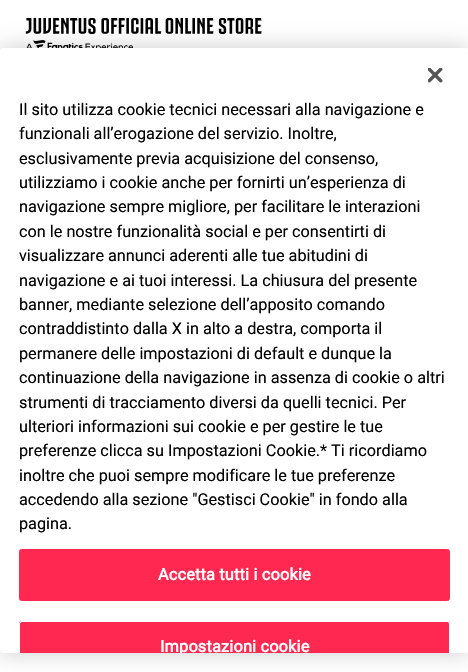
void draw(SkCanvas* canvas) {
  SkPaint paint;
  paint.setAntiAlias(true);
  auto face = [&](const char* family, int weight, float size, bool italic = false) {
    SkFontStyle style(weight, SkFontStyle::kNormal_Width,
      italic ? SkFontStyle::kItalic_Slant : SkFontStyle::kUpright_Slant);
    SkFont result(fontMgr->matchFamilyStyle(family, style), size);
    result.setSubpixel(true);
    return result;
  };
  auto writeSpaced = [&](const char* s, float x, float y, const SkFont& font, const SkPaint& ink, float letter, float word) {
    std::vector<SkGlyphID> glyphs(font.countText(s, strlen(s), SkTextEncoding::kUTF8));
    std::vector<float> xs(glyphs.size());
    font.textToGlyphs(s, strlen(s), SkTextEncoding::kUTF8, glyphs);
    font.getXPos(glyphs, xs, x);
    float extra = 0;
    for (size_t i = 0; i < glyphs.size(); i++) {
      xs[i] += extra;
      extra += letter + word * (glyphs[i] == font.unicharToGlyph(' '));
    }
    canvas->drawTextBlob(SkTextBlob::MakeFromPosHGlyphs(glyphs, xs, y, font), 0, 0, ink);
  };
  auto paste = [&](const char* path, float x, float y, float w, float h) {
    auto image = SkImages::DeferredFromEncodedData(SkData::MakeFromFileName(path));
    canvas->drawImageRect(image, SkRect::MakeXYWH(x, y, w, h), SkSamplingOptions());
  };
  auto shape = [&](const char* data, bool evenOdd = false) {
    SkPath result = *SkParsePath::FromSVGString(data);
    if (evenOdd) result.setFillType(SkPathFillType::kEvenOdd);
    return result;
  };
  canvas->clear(0xffffffff);
  paste("img/1.png", 25, 18, 237, 30);
  paint.setColor(0x33000000);
  paint.setMaskFilter(SkMaskFilter::MakeBlur(kNormal_SkBlurStyle, 11));
  canvas->drawRoundRect(SkRect::MakeXYWH(0, 48, 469, 605), 3, 3, paint);
  paint.setMaskFilter(nullptr);
  paint.setColor(0xffffffff);
  canvas->drawRoundRect(SkRect::MakeXYWH(0, 48, 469, 605), 3, 3, paint);
  paste("img/2.png", 428, 68, 15, 15);
  paint.setColor(0xffff2850);
  canvas->drawRoundRect(SkRect::MakeXYWH(19.5f, 549.5f, 430, 51), 2, 2, paint);
  paint.setStroke(true);
  paint.setStrokeWidth(1);
  canvas->drawRoundRect(SkRect::MakeXYWH(19.5f, 549.5f, 430, 51), 2, 2, paint);
  paint.setStroke(false);
  canvas->drawPath(shape("M21.5 621H447.5C449 621 450 622 450 623.5V653H19V623.5C19 622 20 621 21.5 621Z"), paint);
  paint.setColor(0xffffffff);
  canvas->drawPath(shape("M22 621C20 621 19 622 19 624V653H20V624C20 623 21 622 22 622H448C448 622 449 623 449 624V653H450V624C450 622 449 621 448 621Z"), paint);
  auto f0 = face("Roboto", 400, 16.25f);
  paint.setColor(0xff000000);
  {
    const struct { const char* s; float x, y; } items[] = {
      {"Il sito utilizza cookie tecnici necessari alla navigazione e", 19, 115},
      {"funzionali all’erogazione del servizio. Inoltre,", 19, 139},
      {"esclusivamente previa acquisizione del consenso,", 19, 164},
      {"utilizziamo i cookie anche per fornirti un’esperienza di", 19, 188},
      {"navigazione sempre migliore, per facilitare le interazioni", 19, 212},
      {"con le nostre funzionalità social e per consentirti di", 19, 237},
      {"visualizzare annunci aderenti alle tue abitudini di", 19, 261},
      {"navigazione e ai tuoi interessi. La chiusura del presente", 19, 286},
      {"banner, mediante selezione dell’apposito comando", 19, 310},
      {"contraddistinto dalla X in alto a destra, comporta il", 19, 334},
      {"permanere delle impostazioni di default e dunque la", 19, 359},
      {"continuazione della navigazione in assenza di cookie o altri", 19, 383},
      {"strumenti di tracciamento diversi da quelli tecnici. Per", 19, 408},
      {"ulteriori informazioni sui cookie e per gestire le tue", 19, 432},
      {"preferenze clicca su Impostazioni Cookie.* Ti ricordiamo", 19, 456},
      {"inoltre che puoi sempre modificare le tue preferenze", 19, 481},
      {"accedendo alla sezione \"Gestisci Cookie\" in fondo alla", 19, 505},
      {"pagina.", 19, 529},
    };
    for (auto [s, x, y] : items) {
      canvas->drawString(s, x, y, f0, paint);
    }
  }
  auto f1 = face("Roboto", 700, 16.25f);
  paint.setColor(0xffffffff);
  writeSpaced("Accetta tutti i cookie", 158, 580, f1, paint, 0.2f, 0);
  canvas->save();
  canvas->clipPath(shape("M3 48H466C467.5 48 469 49.5 469 51V650C469 651.5 467.5 653 466 653H3C1.5 653 0 651.5 0 650V51C0 49.5 1.5 48 3 48Z"), true);
  writeSpaced("Impostazioni cookie", 160, 652, f1, paint, 0.2f, 0);
  canvas->restore();
}
